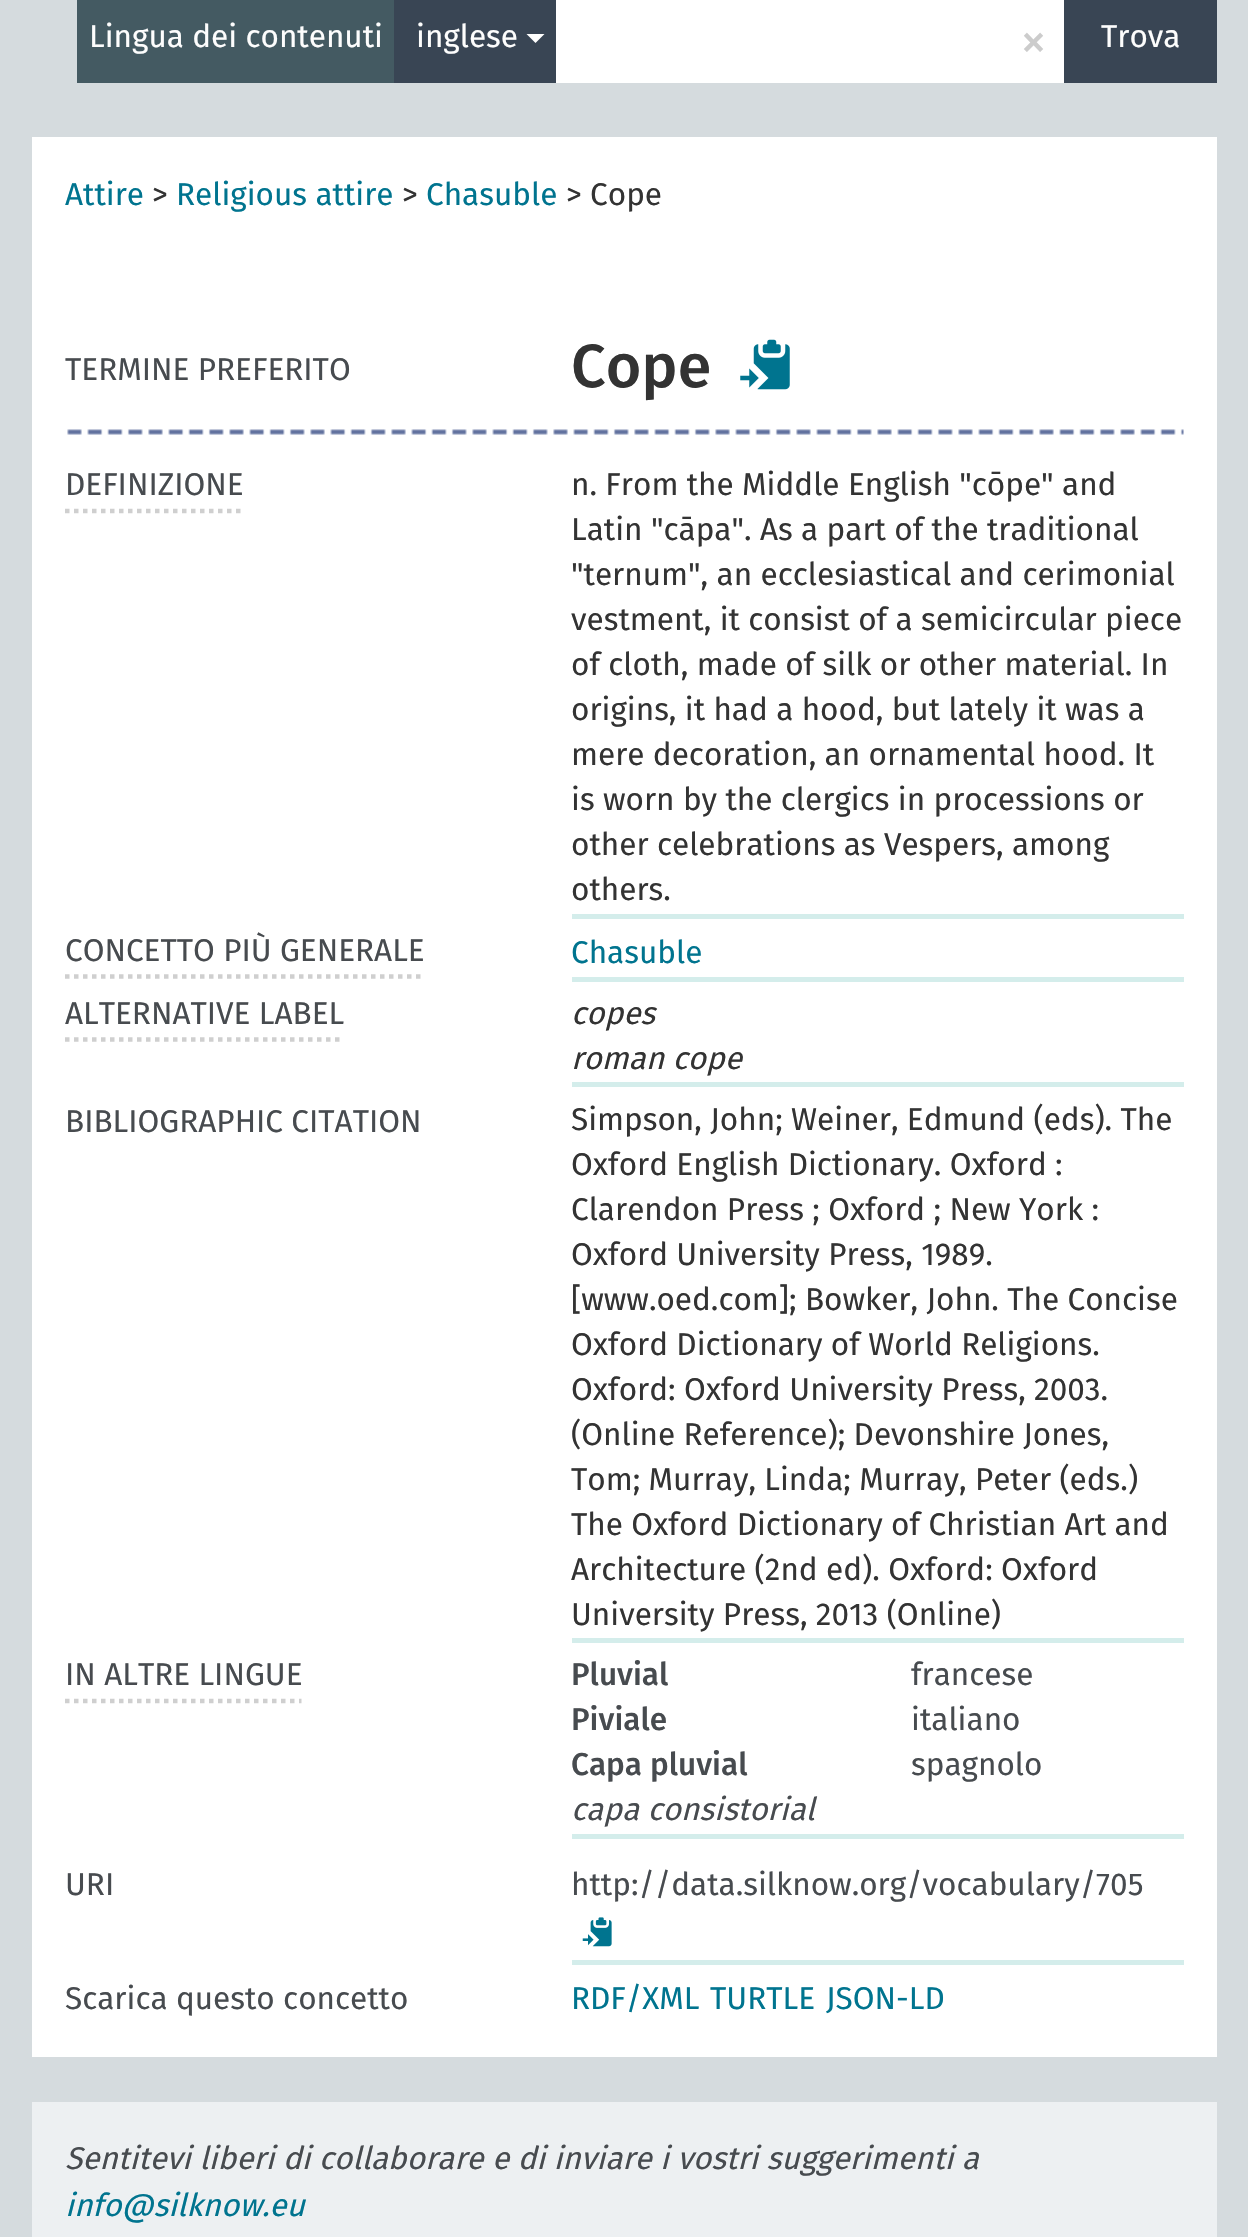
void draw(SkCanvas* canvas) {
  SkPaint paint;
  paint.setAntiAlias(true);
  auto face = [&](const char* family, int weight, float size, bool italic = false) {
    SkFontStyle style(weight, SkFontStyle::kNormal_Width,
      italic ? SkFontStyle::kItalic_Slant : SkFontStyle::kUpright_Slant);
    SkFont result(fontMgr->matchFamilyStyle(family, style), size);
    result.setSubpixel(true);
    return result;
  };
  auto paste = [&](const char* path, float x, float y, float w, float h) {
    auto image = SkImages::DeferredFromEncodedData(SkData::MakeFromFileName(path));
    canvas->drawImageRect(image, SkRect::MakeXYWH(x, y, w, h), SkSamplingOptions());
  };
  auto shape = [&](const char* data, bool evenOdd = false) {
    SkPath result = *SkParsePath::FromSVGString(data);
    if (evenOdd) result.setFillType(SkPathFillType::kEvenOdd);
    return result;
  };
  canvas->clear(0xffd5dbde);
  paint.setColor(0xff445a62);
  canvas->drawRect(SkRect::MakeXYWH(77, 0, 317, 83), paint);
  paint.setColor(0xff394554);
  canvas->drawRect(SkRect::MakeXYWH(394, 0, 162, 83), paint);
  paint.setColor(0xffffffff);
  canvas->drawPath(shape("M526.5 34H544.5L535.5 43Z"), paint);
  {
    const struct { float x, y, w, h; SkColor color; } items[] = {
      {556, 0, 508, 83, 0xffffffff},
      {1064, 0, 153, 83, 0xff394554},
      {32, 137, 1185, 1920, 0xffffffff},
    };
    for (auto [x, y, w, h, color] : items) {
      paint.setColor(color);
      canvas->drawRect(SkRect::MakeXYWH(x, y, w, h), paint);
    }
  }
  paste("img/1.png", 740, 339, 50, 51);
  paste("img/2.png", 67, 429, 1117, 6);
  paint.setStroke(true);
  paint.setStrokeWidth(4.5f);
  paint.setColor(0xffcfcfcf);
  paint.setPathEffect(SkDashPathEffect::Make({{4.5f, 4.5f}}, 0));
  canvas->drawPath(shape("M65 511H243"), paint);
  paint.setPathEffect(nullptr);
  paint.setStroke(false);
  paint.setColor(0xffd4edeb);
  canvas->drawRect(SkRect::MakeXYWH(572, 914, 612, 5), paint);
  paint.setStroke(true);
  paint.setColor(0xffcfcfcf);
  paint.setPathEffect(SkDashPathEffect::Make({{4.5f, 4.5f}}, 0));
  canvas->drawPath(shape("M65 976.5H425"), paint);
  paint.setPathEffect(nullptr);
  paint.setStroke(false);
  paint.setColor(0xffd4edeb);
  canvas->drawRect(SkRect::MakeXYWH(572, 977, 612, 5), paint);
  paint.setStroke(true);
  paint.setColor(0xffcfcfcf);
  paint.setPathEffect(SkDashPathEffect::Make({{4.5f, 4.5f}}, 0));
  canvas->drawPath(shape("M65 1039.5H344"), paint);
  paint.setPathEffect(nullptr);
  paint.setStroke(false);
  paint.setColor(0xffd4edeb);
  canvas->drawRect(SkRect::MakeXYWH(572, 1082, 612, 5), paint);
  canvas->drawRect(SkRect::MakeXYWH(572, 1638, 612, 5), paint);
  paint.setStroke(true);
  paint.setColor(0xffcfcfcf);
  paint.setPathEffect(SkDashPathEffect::Make({{4.5f, 4.5f}}, 0));
  canvas->drawPath(shape("M65 1701H301.5"), paint);
  paint.setPathEffect(nullptr);
  paint.setStroke(false);
  paint.setColor(0xffd4edeb);
  canvas->drawRect(SkRect::MakeXYWH(572, 1834, 612, 5), paint);
  canvas->drawRect(SkRect::MakeXYWH(572, 1960, 612, 5), paint);
  paste("img/3.png", 582, 1917, 30, 30);
  paint.setColor(0xffedf0f2);
  canvas->drawRect(SkRect::MakeXYWH(32, 2102, 1185, 135), paint);
  auto f0 = face("Fira Sans", 400, 31.5f);
  paint.setColor(0xfffdfdfd);
  canvas->drawString("Lingua dei contenuti", 89, 47, f0, paint);
  canvas->drawString("inglese", 416, 47, f0, paint);
  auto f1 = face("Fira Sans", 400, 54);
  paint.setColor(0xffcccccc);
  canvas->drawString("×", 1020, 59, f1, paint);
  paint.setColor(0xfffdfdfd);
  canvas->drawString("Trova", 1101, 47, f0, paint);
  paint.setColor(0xff00748f);
  canvas->drawString("Attire", 65, 205, f0, paint);
  paint.setColor(0xff333333);
  canvas->drawString(">", 152, 205, f0, paint);
  paint.setColor(0xff00748f);
  canvas->drawString("Religious attire", 176, 205, f0, paint);
  paint.setColor(0xff333333);
  canvas->drawString(">", 402, 205, f0, paint);
  paint.setColor(0xff00748f);
  canvas->drawString("Chasuble", 426, 205, f0, paint);
  paint.setColor(0xff333333);
  canvas->drawString("> Cope", 566, 205, f0, paint);
  paint.setColor(0xff474b4f);
  canvas->drawString("TERMINE PREFERITO", 65, 380, f0, paint);
  auto f2 = face("Fira Sans", 500, 61);
  paint.setColor(0xff333333);
  canvas->drawString("Cope", 571, 387, f2, paint);
  paint.setColor(0xff474b4f);
  canvas->drawString("DEFINIZIONE", 65, 495, f0, paint);
  paint.setColor(0xff333333);
  {
    const struct { const char* s; float x, y; } items[] = {
      {"n. From the Middle English \"cōpe\" and", 571, 495},
      {"Latin \"cāpa\". As a part of the traditional", 571, 540},
      {"\"ternum\", an ecclesiastical and cerimonial", 571, 585},
      {"vestment, it consist of a semicircular piece", 571, 630},
      {"of cloth, made of silk or other material. In", 571, 675},
      {"origins, it had a hood, but lately it was a", 571, 720},
      {"mere decoration, an ornamental hood. It", 571, 765},
      {"is worn by the clergics in processions or", 571, 810},
      {"other celebrations as Vespers, among", 571, 855},
      {"others.", 571, 900},
    };
    for (auto [s, x, y] : items) {
      canvas->drawString(s, x, y, f0, paint);
    }
  }
  paint.setColor(0xff474b4f);
  canvas->drawString("CONCETTO PIÙ GENERALE", 65, 961, f0, paint);
  paint.setColor(0xff00748f);
  canvas->drawString("Chasuble", 571, 963, f0, paint);
  paint.setColor(0xff474b4f);
  canvas->drawString("ALTERNATIVE LABEL", 65, 1024, f0, paint);
  auto f3 = face("Fira Sans", 400, 31.5f, true);
  paint.setColor(0xff333333);
  canvas->drawString("copes", 571, 1024, f3, paint);
  canvas->drawString("roman cope", 571, 1069, f3, paint);
  paint.setColor(0xff474b4f);
  canvas->drawString("BIBLIOGRAPHIC CITATION", 65, 1132, f0, paint);
  paint.setColor(0xff333333);
  {
    const struct { const char* s; float x, y; } items[] = {
      {"Simpson, John; Weiner, Edmund (eds). The", 571, 1130},
      {"Oxford English Dictionary. Oxford :", 571, 1175},
      {"Clarendon Press ; Oxford ; New York :", 571, 1220},
      {"Oxford University Press, 1989.", 571, 1265},
      {"[www.oed.com]; Bowker, John. The Concise", 571, 1310},
      {"Oxford Dictionary of World Religions.", 571, 1355},
      {"Oxford: Oxford University Press, 2003.", 571, 1400},
      {"(Online Reference); Devonshire Jones,", 571, 1445},
      {"Tom; Murray, Linda; Murray, Peter (eds.)", 571, 1490},
      {"The Oxford Dictionary of Christian Art and", 571, 1535},
      {"Architecture (2nd ed). Oxford: Oxford", 571, 1580},
      {"University Press, 2013 (Online)", 571, 1625},
    };
    for (auto [s, x, y] : items) {
      canvas->drawString(s, x, y, f0, paint);
    }
  }
  paint.setColor(0xff474b4f);
  canvas->drawString("IN ALTRE LINGUE", 65, 1685, f0, paint);
  auto f4 = face("Fira Sans", 500, 31.5f);
  canvas->drawString("Pluvial", 571, 1685, f4, paint);
  canvas->drawString("francese", 911, 1685, f0, paint);
  canvas->drawString("Piviale", 571, 1730, f4, paint);
  canvas->drawString("italiano", 911, 1730, f0, paint);
  canvas->drawString("Capa pluvial", 571, 1775, f4, paint);
  canvas->drawString("spagnolo", 911, 1775, f0, paint);
  canvas->drawString("capa consistorial", 571, 1820, f3, paint);
  {
    const struct { const char* s; float x, y; } items[] = {
      {"URI", 65, 1895},
      {"http://data.silknow.org/vocabulary/705", 571, 1895},
      {"Scarica questo concetto", 65, 2009},
    };
    for (auto [s, x, y] : items) {
      canvas->drawString(s, x, y, f0, paint);
    }
  }
  paint.setColor(0xff00748f);
  {
    const struct { const char* s; float x, y; } items[] = {
      {"RDF/XML", 571, 2009},
      {"TURTLE", 710, 2009},
      {"JSON-LD", 826, 2009},
    };
    for (auto [s, x, y] : items) {
      canvas->drawString(s, x, y, f0, paint);
    }
  }
  paint.setColor(0xff474b4f);
  canvas->drawString("Sentitevi liberi di collaborare e di inviare i vostri suggerimenti a", 65, 2169, f3, paint);
  paint.setColor(0xff00748f);
  canvas->drawString("info@silknow.eu", 65, 2216, f3, paint);
}
